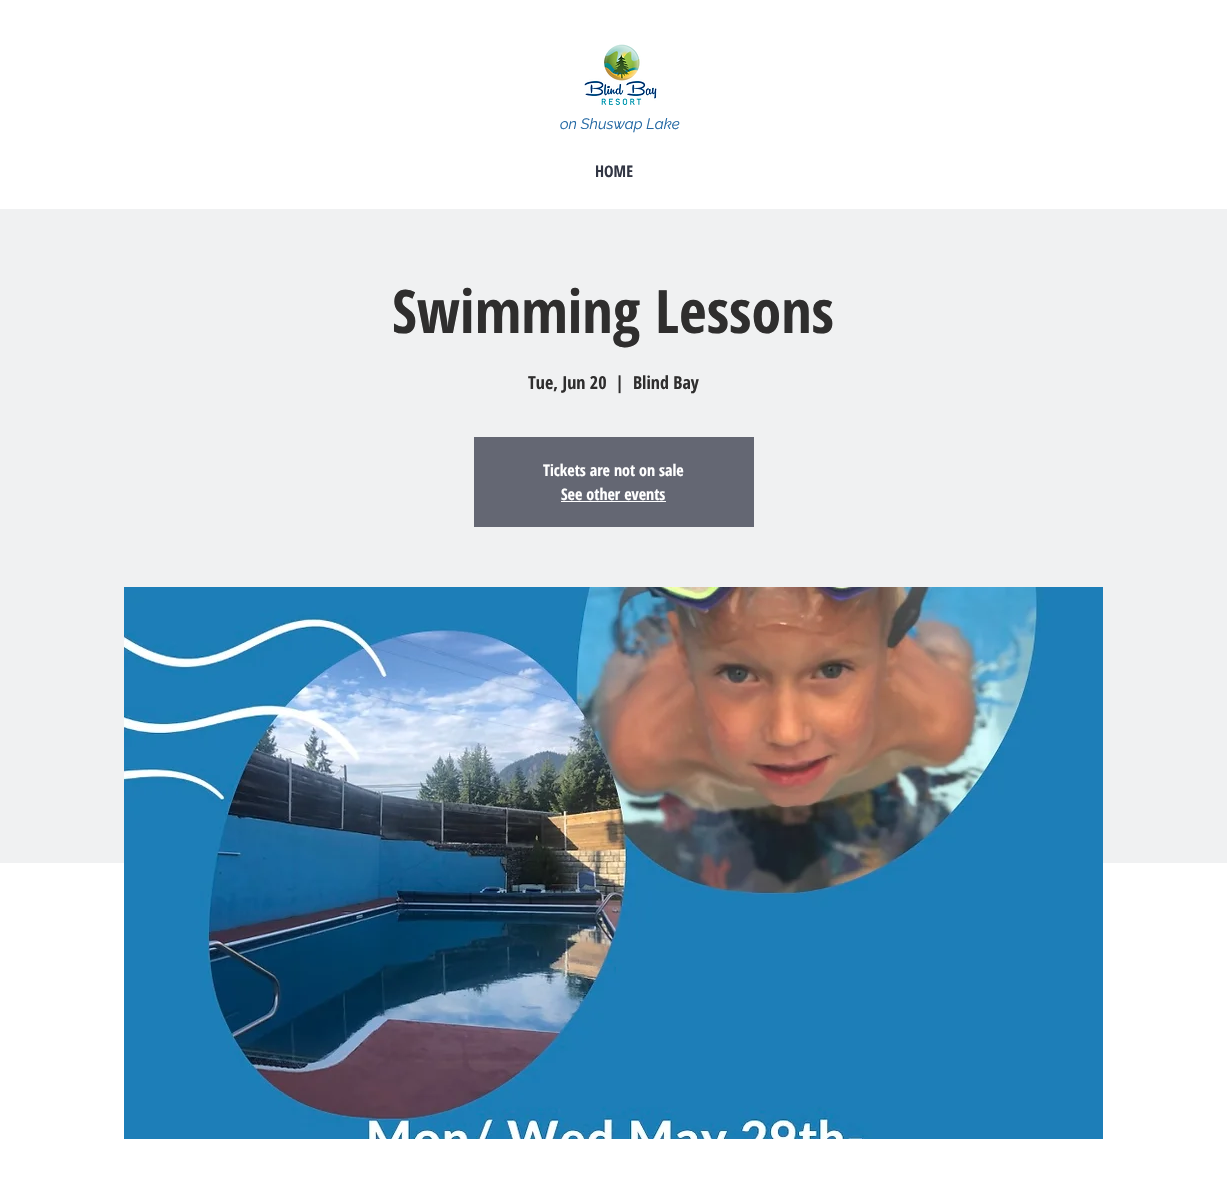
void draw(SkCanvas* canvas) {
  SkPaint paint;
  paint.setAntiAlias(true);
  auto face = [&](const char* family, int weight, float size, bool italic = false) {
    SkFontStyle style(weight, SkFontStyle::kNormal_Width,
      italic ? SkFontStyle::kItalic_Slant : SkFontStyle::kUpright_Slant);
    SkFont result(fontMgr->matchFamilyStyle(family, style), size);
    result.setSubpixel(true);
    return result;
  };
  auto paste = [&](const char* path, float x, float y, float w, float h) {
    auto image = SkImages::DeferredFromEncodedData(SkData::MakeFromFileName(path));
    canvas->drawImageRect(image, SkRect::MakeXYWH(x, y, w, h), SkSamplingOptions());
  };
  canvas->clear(0xffffffff);
  paste("img/1.png", 584, 44, 73, 61);
  {
    const struct { float x, y, w, h; SkColor color; } items[] = {
      {0, 209, 1227, 654, 0xfff0f1f2},
      {474, 437, 280, 90, 0xff646773},
      {561, 501, 105, 1, 0xffffffff},
    };
    for (auto [x, y, w, h, color] : items) {
      paint.setColor(color);
      canvas->drawRect(SkRect::MakeXYWH(x, y, w, h), paint);
    }
  }
  paste("img/2.png", 124, 587, 979, 552);
  auto f0 = face("Raleway", 400, 15, true);
  paint.setColor(0xff2267a3);
  canvas->drawString("on Shuswap Lake", 560, 129, f0, paint);
  auto f1 = face("Open Sans Condensed", 700, 16);
  paint.setColor(0xff323644);
  canvas->drawString("HOME", 595, 177, f1, paint);
  auto f2 = face("Open Sans Condensed", 700, 60);
  paint.setColor(0xff2f2e2e);
  canvas->drawString("Swimming Lessons", 392, 333, f2, paint);
  auto f3 = face("Open Sans Condensed", 700, 18);
  {
    const struct { const char* s; float x, y; } items[] = {
      {"Tue, Jun 20", 528, 389},
      {"|", 615, 389},
      {"Blind Bay", 633, 389},
    };
    for (auto [s, x, y] : items) {
      canvas->drawString(s, x, y, f3, paint);
    }
  }
  paint.setColor(0xffffffff);
  canvas->drawString("Tickets are not on sale", 543, 476, f1, paint);
  canvas->drawString("See other events", 561, 500, f1, paint);
}
